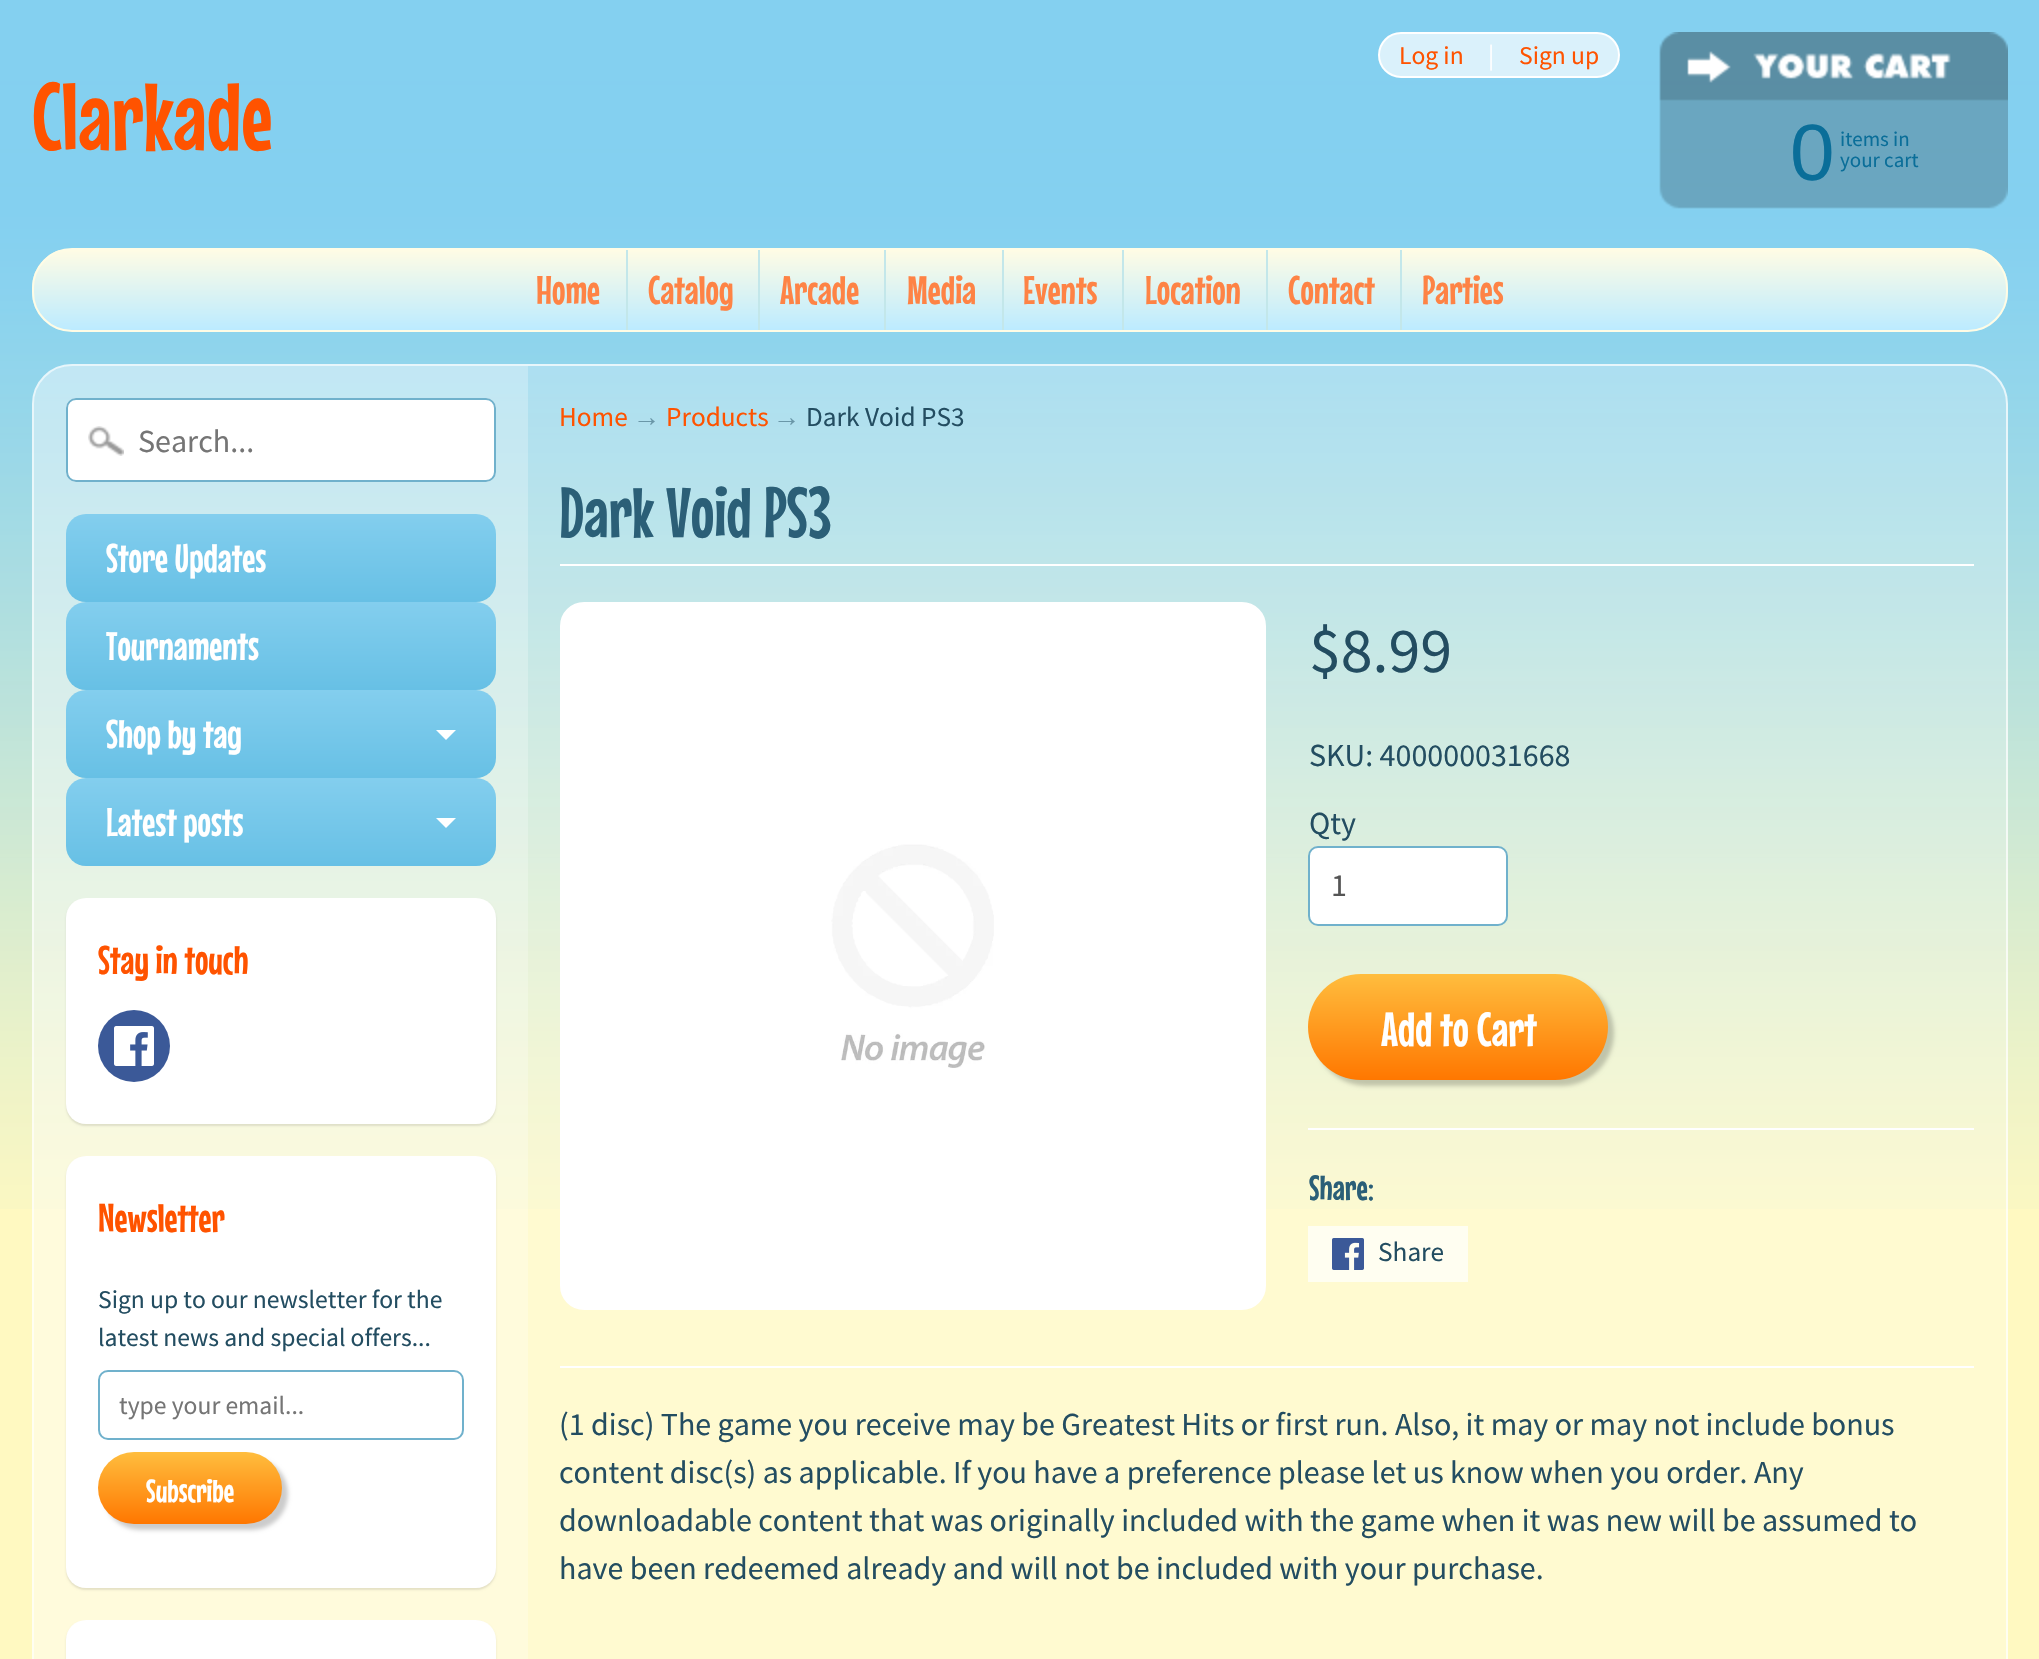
void draw(SkCanvas* canvas) {
  SkPaint paint;
  paint.setAntiAlias(true);
  auto face = [&](const char* family, int weight, float size, bool italic = false) {
    SkFontStyle style(weight, SkFontStyle::kNormal_Width,
      italic ? SkFontStyle::kItalic_Slant : SkFontStyle::kUpright_Slant);
    SkFont result(fontMgr->matchFamilyStyle(family, style), size);
    result.setSubpixel(true);
    return result;
  };
  auto paste = [&](const char* path, float x, float y, float w, float h) {
    auto image = SkImages::DeferredFromEncodedData(SkData::MakeFromFileName(path));
    canvas->drawImageRect(image, SkRect::MakeXYWH(x, y, w, h), SkSamplingOptions());
  };
  auto shape = [&](const char* data, bool evenOdd = false) {
    SkPath result = *SkParsePath::FromSVGString(data);
    if (evenOdd) result.setFillType(SkPathFillType::kEvenOdd);
    return result;
  };
  canvas->clear(0xfffff9c1);
  paste("img/1.png", 0, 0, 2039, 1209);
  paint.setColor(0xffdaf1fb);
  canvas->drawRoundRect(SkRect::MakeXYWH(1379, 33, 240, 44), 22, 22, paint);
  paint.setStroke(true);
  paint.setStrokeWidth(2);
  paint.setColor(0xffffffff);
  canvas->drawRoundRect(SkRect::MakeXYWH(1379, 33, 240, 44), 22, 22, paint);
  paste("img/2.png", 1659, 32, 349, 177);
  canvas->save();
  canvas->clipPath(shape("M72 248H1968C1990 248 2008 266 2008 288V292C2008 314 1990 332 1968 332H72C50 332 32 314 32 292V288C32 266 50 248 72 248Z"), true);
  paint.setStroke(false);
  {
    const SkColor colors[] = {0xfffffce5, 0xffbcebff};
    const float stops[] = {0, 1};
    const SkPoint ends[] = {{1020, 250}, {1020, 330}};
    paint.setShader(SkGradientShader::MakeLinear(ends, colors, stops, 2, SkTileMode::kClamp));
    paint.setAlpha(255);
  }
  canvas->drawRect(SkRect::MakeXYWH(32, 250, 1976, 80), paint);
  canvas->restore();
  paint.setStroke(true);
  paint.setShader(nullptr);
  paint.setColor(0xfffffce5);
  canvas->drawRoundRect(SkRect::MakeXYWH(33, 249, 1974, 82), 39, 39, paint);
  paint.setStroke(false);
  {
    const struct { float x, y, w, h; SkColor color; } items[] = {
      {626, 250, 2, 80, 0xffc3e7ea},
      {758, 250, 2, 80, 0xffc3e7ea},
      {884, 250, 2, 80, 0xffc3e7ea},
      {1002, 250, 2, 80, 0xffc3e7ea},
      {1122, 250, 2, 80, 0xffc3e7ea},
      {1266, 250, 2, 80, 0xffc3e7ea},
      {1400, 250, 2, 80, 0xffc3e7ea},
    };
    for (auto [x, y, w, h, color] : items) {
      paint.setColor(color);
      canvas->drawRect(SkRect::MakeXYWH(x, y, w, h), paint);
    }
  }
  paint.setColor(0x40ffffff);
  canvas->drawRoundRect(SkRect::MakeXYWH(32, 364, 1976, 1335), 40, 40, paint);
  paint.setStroke(true);
  paint.setColor(0xb3ffffff);
  canvas->drawRoundRect(SkRect::MakeXYWH(33, 365, 1974, 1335), 39, 39, paint);
  paint.setStroke(false);
  paint.setColor(0x40ffffff);
  canvas->drawPath(shape("M72 366H528V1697H72C51 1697 34 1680 34 1659V404C34 383 51 366 72 366Z"), paint);
  paint.setColor(0xffffffff);
  canvas->drawRoundRect(SkRect::MakeXYWH(66, 398, 430, 84), 10, 10, paint);
  paste("img/3.png", 88, 426, 36, 30);
  paint.setStroke(true);
  paint.setColor(0xff70b1cc);
  canvas->drawRoundRect(SkRect::MakeXYWH(67, 399, 428, 82), 9, 9, paint);
  paint.setStroke(false);
  {
    const SkColor colors[] = {0xff83ceee, 0xff67c0e5};
    const float stops[] = {0, 1};
    const SkPoint ends[] = {{281, 514}, {281, 602}};
    paint.setShader(SkGradientShader::MakeLinear(ends, colors, stops, 2, SkTileMode::kClamp));
    paint.setAlpha(255);
  }
  canvas->drawRoundRect(SkRect::MakeXYWH(66, 514, 430, 88), 20, 20, paint);
  {
    const SkColor colors[] = {0xff83ceee, 0xff67c0e5};
    const float stops[] = {0, 1};
    const SkPoint ends[] = {{281, 602}, {281, 690}};
    paint.setShader(SkGradientShader::MakeLinear(ends, colors, stops, 2, SkTileMode::kClamp));
    paint.setAlpha(255);
  }
  canvas->drawRoundRect(SkRect::MakeXYWH(66, 602, 430, 88), 20, 20, paint);
  {
    const SkColor colors[] = {0xff83ceee, 0xff67c0e5};
    const float stops[] = {0, 1};
    const SkPoint ends[] = {{281, 690}, {281, 778}};
    paint.setShader(SkGradientShader::MakeLinear(ends, colors, stops, 2, SkTileMode::kClamp));
    paint.setAlpha(255);
  }
  canvas->drawRoundRect(SkRect::MakeXYWH(66, 690, 430, 88), 20, 20, paint);
  paint.setShader(nullptr);
  paint.setColor(0xffffffff);
  canvas->drawPath(shape("M436 730H456L446 740Z"), paint);
  {
    const SkColor colors[] = {0xff83ceee, 0xff67c0e5};
    const float stops[] = {0, 1};
    const SkPoint ends[] = {{281, 778}, {281, 866}};
    paint.setShader(SkGradientShader::MakeLinear(ends, colors, stops, 2, SkTileMode::kClamp));
    paint.setAlpha(255);
  }
  canvas->drawRoundRect(SkRect::MakeXYWH(66, 778, 430, 88), 20, 20, paint);
  paint.setShader(nullptr);
  paint.setColor(0xffffffff);
  canvas->drawPath(shape("M436 818H456L446 828Z"), paint);
  paint.setColor(0x1a000000);
  paint.setMaskFilter(SkMaskFilter::MakeBlur(kNormal_SkBlurStyle, 1));
  canvas->drawRoundRect(SkRect::MakeXYWH(66, 900, 430, 226), 20, 20, paint);
  paint.setMaskFilter(nullptr);
  paint.setColor(0xffffffff);
  canvas->drawRoundRect(SkRect::MakeXYWH(66, 898, 430, 226), 20, 20, paint);
  paint.setColor(0xff3b5998);
  canvas->drawCircle(134, 1046, 36, paint);
  paste("img/4.png", 114, 1026, 40, 40);
  paint.setColor(0x1a000000);
  paint.setMaskFilter(SkMaskFilter::MakeBlur(kNormal_SkBlurStyle, 1));
  canvas->drawRoundRect(SkRect::MakeXYWH(66, 1158, 430, 432), 20, 20, paint);
  paint.setMaskFilter(nullptr);
  paint.setColor(0xffffffff);
  canvas->drawRoundRect(SkRect::MakeXYWH(66, 1156, 430, 432), 20, 20, paint);
  paint.setStroke(true);
  paint.setColor(0xff70b1cc);
  canvas->drawRoundRect(SkRect::MakeXYWH(99, 1371, 364, 68), 9, 9, paint);
  paint.setStroke(false);
  paint.setColor(0x33000000);
  paint.setMaskFilter(SkMaskFilter::MakeBlur(kNormal_SkBlurStyle, 2));
  canvas->drawRoundRect(SkRect::MakeXYWH(104, 1458, 184, 72), 36, 36, paint);
  paint.setMaskFilter(nullptr);
  {
    const SkColor colors[] = {0xffffbd3e, 0xffff7700};
    const float stops[] = {0, 1};
    const SkPoint ends[] = {{190, 1452}, {190, 1524}};
    paint.setShader(SkGradientShader::MakeLinear(ends, colors, stops, 2, SkTileMode::kClamp));
    paint.setAlpha(255);
  }
  canvas->drawRoundRect(SkRect::MakeXYWH(98, 1452, 184, 72), 36, 36, paint);
  paint.setShader(nullptr);
  paint.setColor(0x1a000000);
  paint.setMaskFilter(SkMaskFilter::MakeBlur(kNormal_SkBlurStyle, 1));
  canvas->drawRoundRect(SkRect::MakeXYWH(66, 1622, 430, 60), 20, 20, paint);
  paint.setMaskFilter(nullptr);
  paint.setColor(0xffffffff);
  canvas->drawRoundRect(SkRect::MakeXYWH(66, 1620, 430, 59), 20, 20, paint);
  canvas->drawRect(SkRect::MakeXYWH(560, 564, 1414, 2), paint);
  canvas->drawRoundRect(SkRect::MakeXYWH(561, 603, 704, 706), 23, 23, paint);
  paint.setStroke(true);
  canvas->drawRoundRect(SkRect::MakeXYWH(561, 603, 704, 706), 23, 23, paint);
  paste("img/5.png", 831, 844, 163, 224);
  paint.setStroke(false);
  canvas->drawRoundRect(SkRect::MakeXYWH(1309, 847, 198, 78), 9, 9, paint);
  paint.setStroke(true);
  paint.setColor(0xff70b1cc);
  canvas->drawRoundRect(SkRect::MakeXYWH(1309, 847, 198, 78), 9, 9, paint);
  paint.setStroke(false);
  paint.setColor(0x33000000);
  paint.setMaskFilter(SkMaskFilter::MakeBlur(kNormal_SkBlurStyle, 2));
  canvas->drawRoundRect(SkRect::MakeXYWH(1314, 980, 300, 106), 53, 53, paint);
  paint.setMaskFilter(nullptr);
  {
    const SkColor colors[] = {0xffffbd3e, 0xffff7700};
    const float stops[] = {0, 1};
    const SkPoint ends[] = {{1458, 974}, {1458, 1080}};
    paint.setShader(SkGradientShader::MakeLinear(ends, colors, stops, 2, SkTileMode::kClamp));
    paint.setAlpha(255);
  }
  canvas->drawRoundRect(SkRect::MakeXYWH(1308, 974, 300, 106), 53, 53, paint);
  paint.setShader(nullptr);
  paint.setColor(0xffffffff);
  canvas->drawRect(SkRect::MakeXYWH(1308, 1128, 666, 2), paint);
  paint.setColor(0xfffffef1);
  canvas->drawRect(SkRect::MakeXYWH(1308, 1226, 160, 56), paint);
  paste("img/6.png", 1332, 1238, 32, 32);
  paint.setColor(0xffffffff);
  canvas->drawRect(SkRect::MakeXYWH(560, 1366, 1414, 2), paint);
  auto f0 = face("Source Sans Pro", 400, 25.6f);
  paint.setColor(0xffff5300);
  canvas->drawString("Log in", 1399, 64, f0, paint);
  paint.setColor(0xffffffff);
  canvas->drawString("|", 1488, 64, f0, paint);
  paint.setColor(0xffff5300);
  canvas->drawString("Sign up", 1519, 64, f0, paint);
  auto f1 = face("Mouse Memoirs", 400, 96);
  canvas->drawString("Clarkade", 32, 150, f1, paint);
  auto f2 = face("Liberation Sans", 400, 80);
  paint.setColor(0xff0a6e99);
  canvas->drawString("0", 1790, 180, f2, paint);
  auto f3 = face("Source Sans Pro", 400, 21);
  canvas->drawString("items in", 1840, 146, f3, paint);
  canvas->drawString("your cart", 1840, 167, f3, paint);
  auto f4 = face("Mouse Memoirs", 400, 40);
  paint.setColor(0xfffe8345);
  {
    const struct { const char* s; float x, y; } items[] = {
      {"Home", 536, 304},
      {"Catalog", 648, 304},
      {"Arcade", 780, 304},
      {"Media", 907, 304},
      {"Events", 1023, 304},
      {"Location", 1145, 304},
      {"Contact", 1288, 304},
      {"Parties", 1422, 304},
    };
    for (auto [s, x, y] : items) {
      canvas->drawString(s, x, y, f4, paint);
    }
  }
  auto f5 = face("Source Sans Pro", 400, 32);
  paint.setColor(0xff757575);
  canvas->drawString("Search...", 138, 452, f5, paint);
  paint.setColor(0xffffffff);
  {
    const struct { const char* s; float x, y; } items[] = {
      {"Store Updates", 106, 572},
      {"Tournaments", 106, 660},
      {"Shop by tag", 106, 748},
      {"Latest posts", 106, 836},
    };
    for (auto [s, x, y] : items) {
      canvas->drawString(s, x, y, f4, paint);
    }
  }
  paint.setColor(0xffff5300);
  canvas->drawString("Stay in touch", 98, 974, f4, paint);
  canvas->drawString("Newsletter", 98, 1232, f4, paint);
  paint.setColor(0xff234d61);
  canvas->drawString("Sign up to our newsletter for the", 98, 1308, f0, paint);
  canvas->drawString("latest news and special offers...", 98, 1346, f0, paint);
  paint.setColor(0xff757575);
  canvas->drawString("type your email...", 119, 1414, f0, paint);
  auto f6 = face("Mouse Memoirs", 400, 32);
  paint.setColor(0xffffffff);
  canvas->drawString("Subscribe", 146, 1502, f6, paint);
  auto f7 = face("Source Sans Pro", 400, 27.25f);
  paint.setColor(0xffff5300);
  canvas->drawString("Home", 559, 426, f7, paint);
  auto f8 = face("Liberation Sans", 400, 27.25f);
  paint.setColor(0xff6a97a8);
  canvas->drawString("→", 633, 426, f8, paint);
  paint.setColor(0xffff5300);
  canvas->drawString("Products", 666, 426, f7, paint);
  paint.setColor(0xff6a97a8);
  canvas->drawString("→", 773, 426, f8, paint);
  paint.setColor(0xff234d61);
  canvas->drawString("Dark Void PS3", 806, 426, f7, paint);
  auto f9 = face("Mouse Memoirs", 400, 70.5f);
  paint.setColor(0xff2b5f77);
  canvas->drawString("Dark Void PS3", 559, 537, f9, paint);
  auto f10 = face("Source Sans Pro", 400, 64);
  paint.setColor(0xff234d61);
  canvas->drawString("$8.99", 1309, 672, f10, paint);
  canvas->drawString("SKU: 400000031668", 1309, 766, f5, paint);
  canvas->drawString("Qty", 1309, 834, f5, paint);
  paint.setColor(0xff555555);
  canvas->drawString("1", 1331, 896, f5, paint);
  auto f11 = face("Mouse Memoirs", 400, 48);
  paint.setColor(0xffffffff);
  canvas->drawString("Add to Cart", 1381, 1046, f11, paint);
  auto f12 = face("Mouse Memoirs", 400, 35);
  paint.setColor(0xff2b5f77);
  canvas->drawString("Share:", 1309, 1200, f12, paint);
  paint.setColor(0xff234d61);
  canvas->drawString("Share", 1378, 1261, f7, paint);
  {
    const struct { const char* s; float x, y; } items[] = {
      {"(1 disc) The game you receive may be Greatest Hits or first run. Also, it may or may not include bonus", 559, 1435},
      {"content disc(s) as applicable. If you have a preference please let us know when you order. Any", 559, 1483},
      {"downloadable content that was originally included with the game when it was new will be assumed to", 559, 1531},
      {"have been redeemed already and will not be included with your purchase.", 559, 1579},
    };
    for (auto [s, x, y] : items) {
      canvas->drawString(s, x, y, f5, paint);
    }
  }
}
